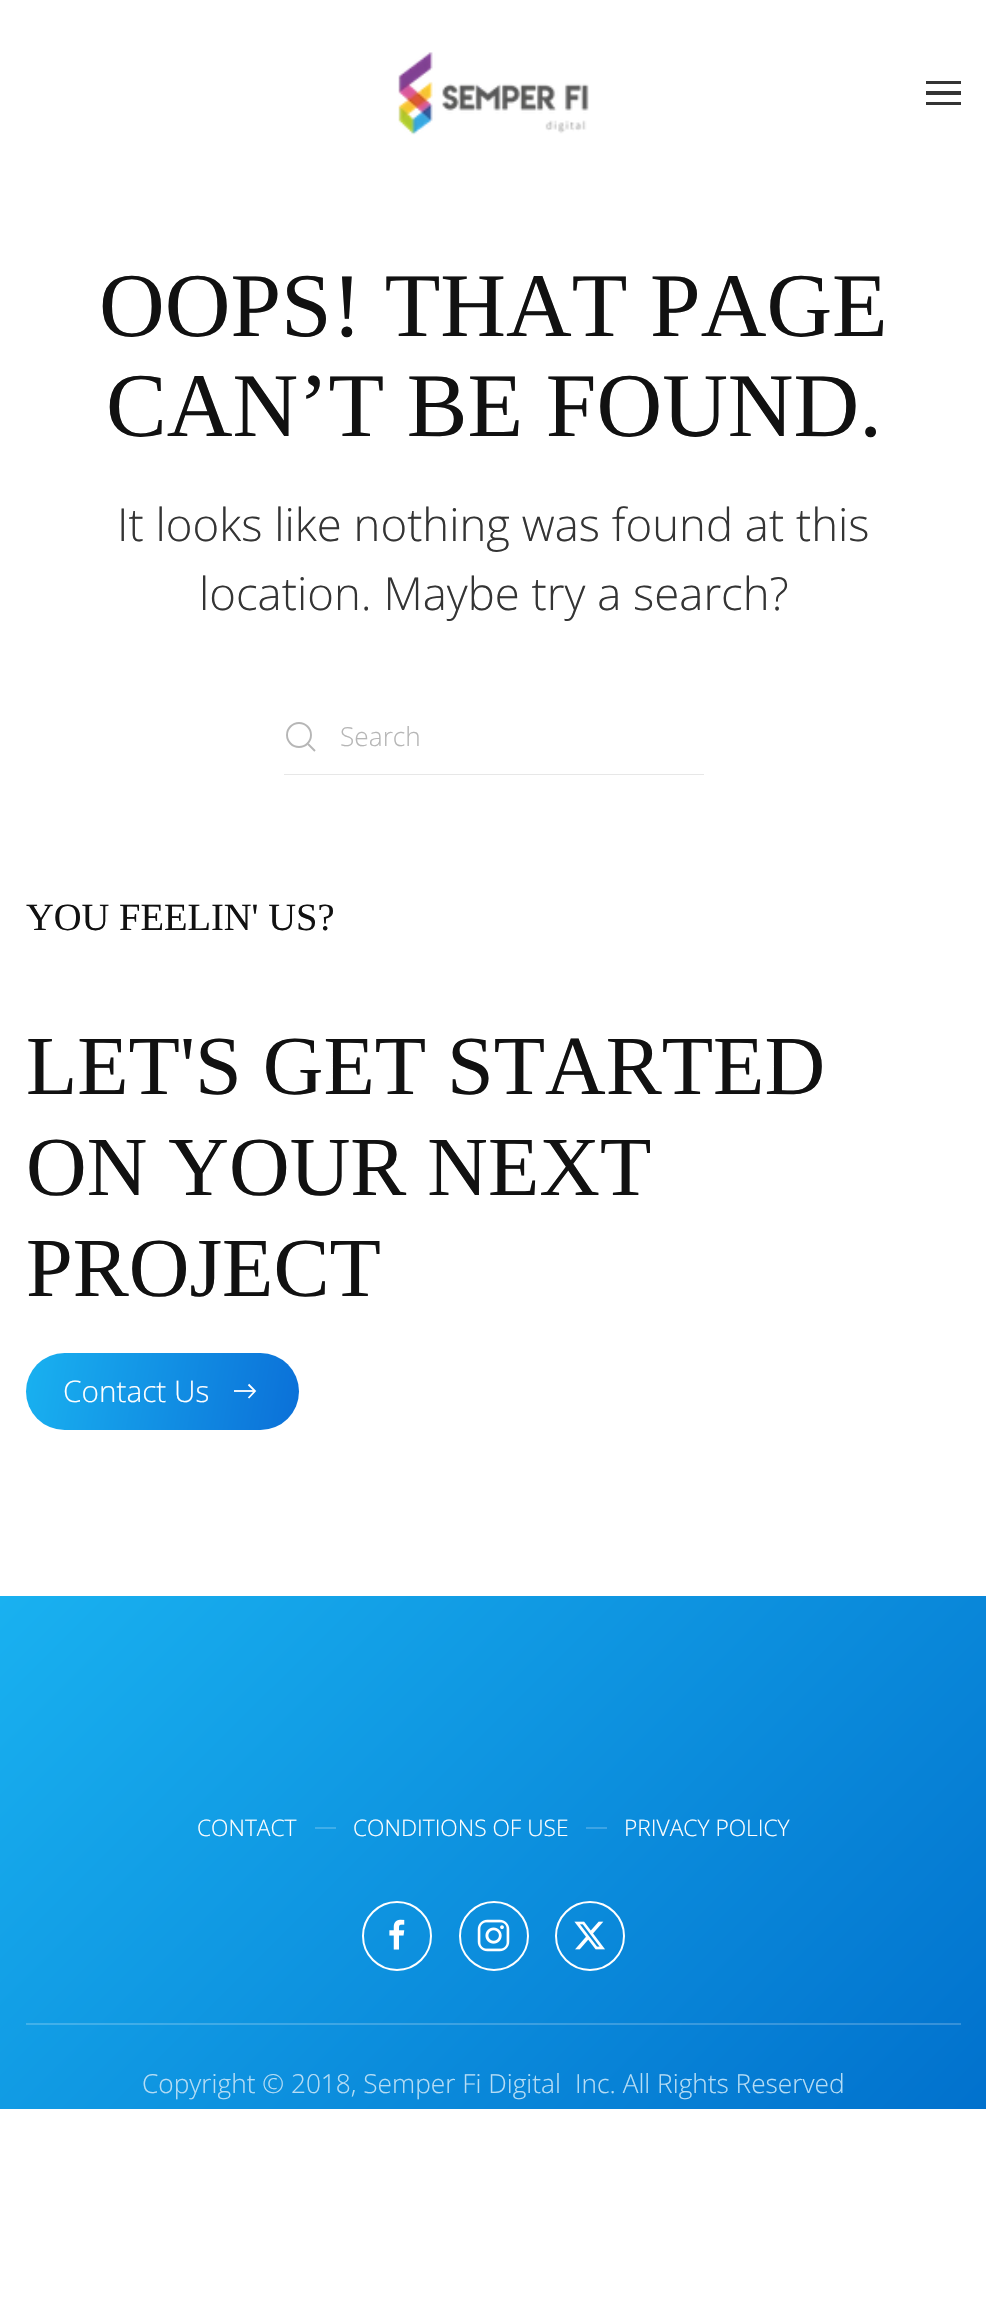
void draw(SkCanvas* canvas) {
  SkPaint paint;
  paint.setAntiAlias(true);
  auto face = [&](const char* family, int weight, float size, bool italic = false) {
    SkFontStyle style(weight, SkFontStyle::kNormal_Width,
      italic ? SkFontStyle::kItalic_Slant : SkFontStyle::kUpright_Slant);
    SkFont result(fontMgr->matchFamilyStyle(family, style), size);
    result.setSubpixel(true);
    return result;
  };
  auto paste = [&](const char* path, float x, float y, float w, float h) {
    auto image = SkImages::DeferredFromEncodedData(SkData::MakeFromFileName(path));
    canvas->drawImageRect(image, SkRect::MakeXYWH(x, y, w, h), SkSamplingOptions());
  };
  auto shape = [&](const char* data, bool evenOdd = false) {
    SkPath result = *SkParsePath::FromSVGString(data);
    if (evenOdd) result.setFillType(SkPathFillType::kEvenOdd);
    return result;
  };
  canvas->clear(0xffffffff);
  paste("img/1.png", 398, 52, 191, 83);
  {
    const struct { float x, y, w, h; SkColor color; } items[] = {
      {926, 81, 35, 3, 0xff343434},
      {926, 91, 35, 4, 0xff343434},
      {926, 102, 35, 3, 0xff343434},
    };
    for (auto [x, y, w, h, color] : items) {
      paint.setColor(color);
      canvas->drawRect(SkRect::MakeXYWH(x, y, w, h), paint);
    }
  }
  paint.setStroke(true);
  paint.setStrokeWidth(1.9f);
  paint.setColor(0xffb6b6b6);
  canvas->drawCircle(299, 735, 12, paint);
  canvas->drawPath(shape("M308 744L315 751Z"), paint);
  paint.setStroke(false);
  paint.setColor(0xffe7e7e7);
  canvas->drawRect(SkRect::MakeXYWH(284, 774, 420, 1), paint);
  {
    const SkColor colors[] = {0xff19b1f0, 0xff0b70d8};
    const float stops[] = {0, 1};
    const SkPoint ends[] = {{24, 1367}, {302, 1416}};
    paint.setShader(SkGradientShader::MakeLinear(ends, colors, stops, 2, SkTileMode::kClamp));
    paint.setAlpha(255);
  }
  canvas->drawRoundRect(SkRect::MakeXYWH(26, 1353, 273, 77), 38.5f, 38.5f, paint);
  {
    const SkColor colors[] = {0xffe8f7fe, 0xffe7f1fb};
    const float stops[] = {0, 1};
    const SkPoint ends[] = {{24, 1367}, {302, 1416}};
    paint.setShader(SkGradientShader::MakeLinear(ends, colors, stops, 2, SkTileMode::kClamp));
    paint.setAlpha(255);
  }
  canvas->drawRect(SkRect::MakeXYWH(234, 1390, 21, 2), paint);
  paint.setStroke(true);
  paint.setStrokeWidth(1.8f);
  paint.setShader(nullptr);
  paint.setColor(0xffffffff);
  canvas->drawPath(shape("M248.5 1398L255 1391L248.5 1384.5"), paint);
  paint.setStroke(false);
  {
    const SkColor colors[] = {0xff19b1f0, 0xff0171cd};
    const float stops[] = {0, 1};
    const SkPoint ends[] = {{119, 1477}, {868, 2227}};
    paint.setShader(SkGradientShader::MakeLinear(ends, colors, stops, 2, SkTileMode::kClamp));
    paint.setAlpha(255);
  }
  canvas->drawRect(SkRect::MakeXYWH(0, 1596, 986, 513), paint);
  {
    const SkColor colors[] = {0xff47c1f3, 0xff348dd7};
    const float stops[] = {0, 1};
    const SkPoint ends[] = {{119, 1477}, {868, 2227}};
    paint.setShader(SkGradientShader::MakeLinear(ends, colors, stops, 2, SkTileMode::kClamp));
    paint.setAlpha(255);
  }
  canvas->drawRect(SkRect::MakeXYWH(26, 2023, 935, 2), paint);
  paint.setShader(nullptr);
  paint.setColor(0xff40aee9);
  canvas->drawRect(SkRect::MakeXYWH(315, 1827, 21, 2), paint);
  paint.setColor(0xff3da4e4);
  canvas->drawRect(SkRect::MakeXYWH(586, 1827, 21, 2), paint);
  paint.setStroke(true);
  paint.setStrokeWidth(2);
  paint.setColor(0xffffffff);
  canvas->drawCircle(397, 1936, 34, paint);
  paste("img/2.png", 389, 1919, 16, 31);
  canvas->drawCircle(494, 1936, 34, paint);
  paste("img/3.png", 477, 1919, 33, 33);
  canvas->drawCircle(590, 1936, 34, paint);
  paste("img/4.png", 574, 1921, 31, 29);
  auto f0 = face("Liberation Serif", 400, 91);
  paint.setStroke(false);
  paint.setColor(0xff111111);
  canvas->drawString("OOPS! THAT PAGE", 99, 336, f0, paint);
  canvas->drawString("CAN’T BE FOUND.", 106, 436, f0, paint);
  auto f1 = face("Open Sans", 300, 45.5f);
  paint.setColor(0xff343434);
  canvas->drawString("It looks like nothing was found at this", 117, 541, f1, paint);
  canvas->drawString("location. Maybe try a search?", 199, 610, f1, paint);
  auto f2 = face("Open Sans", 300, 26.25f);
  paint.setColor(0xffb6b6b6);
  canvas->drawString("Search", 340, 746, f2, paint);
  auto f3 = face("Liberation Serif", 400, 38.5f);
  paint.setColor(0xff111111);
  canvas->drawString("YOU FEELIN' US?", 26, 930, f3, paint);
  auto f4 = face("Liberation Serif", 400, 84);
  {
    const struct { const char* s; float x, y; } items[] = {
      {"LET'S GET STARTED", 26, 1094},
      {"ON YOUR NEXT", 26, 1195},
      {"PROJECT", 26, 1296},
    };
    for (auto [s, x, y] : items) {
      canvas->drawString(s, x, y, f4, paint);
    }
  }
  auto f5 = face("Open Sans", 300, 29.75f);
  paint.setColor(0xffffffff);
  canvas->drawString("Contact Us", 63, 1402, f5, paint);
  auto f6 = face("Open Sans", 300, 22.75f);
  {
    const struct { const char* s; float x, y; } items[] = {
      {"CONTACT", 197, 1836},
      {"CONDITIONS OF USE", 353, 1836},
      {"PRIVACY POLICY", 624, 1836},
    };
    for (auto [s, x, y] : items) {
      canvas->drawString(s, x, y, f6, paint);
    }
  }
  paint.setColor(0xffb6ddf5);
  canvas->drawString("Copyright © 2018, Semper Fi Digital", 142, 2093, f2, paint);
  canvas->drawString("Inc. All Rights Reserved", 575, 2093, f2, paint);
}
